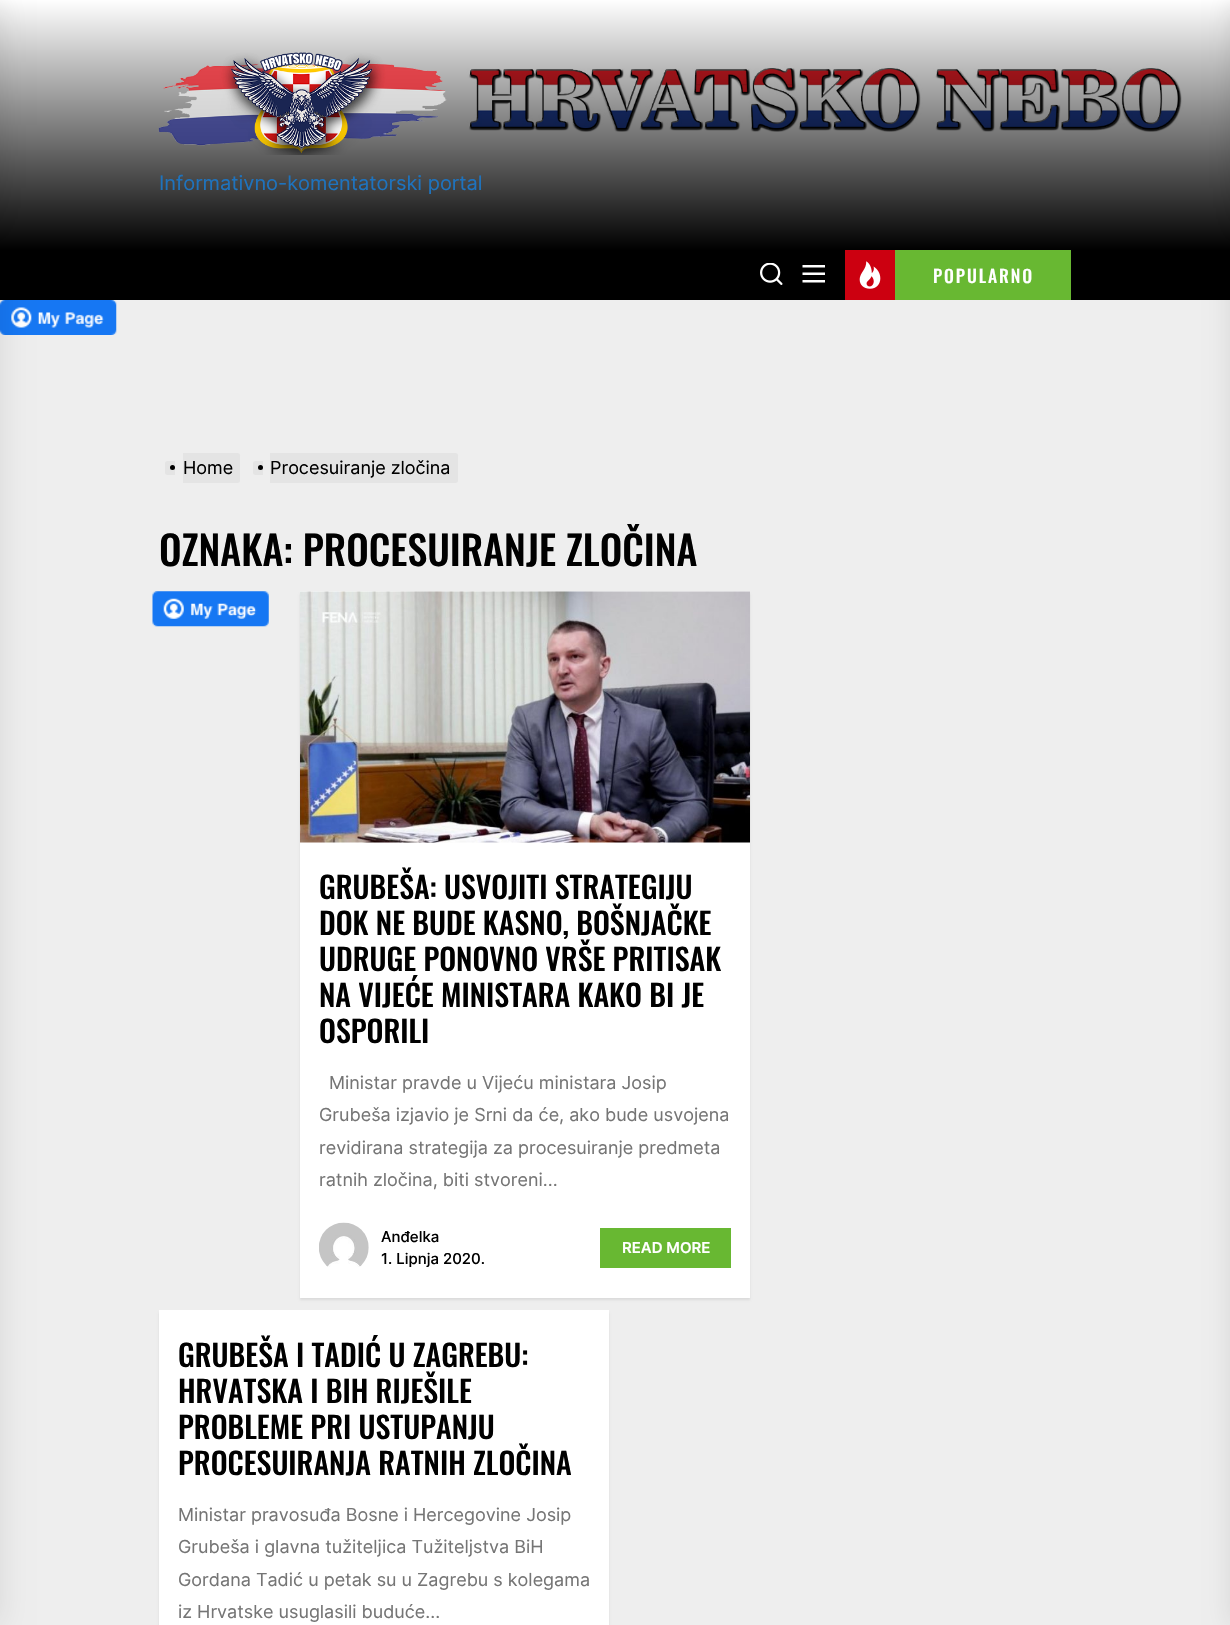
void draw(SkCanvas* canvas) {
  SkPaint paint;
  paint.setAntiAlias(true);
  auto face = [&](const char* family, int weight, float size, bool italic = false) {
    SkFontStyle style(weight, SkFontStyle::kNormal_Width,
      italic ? SkFontStyle::kItalic_Slant : SkFontStyle::kUpright_Slant);
    SkFont result(fontMgr->matchFamilyStyle(family, style), size);
    result.setSubpixel(true);
    return result;
  };
  auto writeSpaced = [&](const char* s, float x, float y, const SkFont& font, const SkPaint& ink, float letter, float word) {
    std::vector<SkGlyphID> glyphs(font.countText(s, strlen(s), SkTextEncoding::kUTF8));
    std::vector<float> xs(glyphs.size());
    font.textToGlyphs(s, strlen(s), SkTextEncoding::kUTF8, glyphs);
    font.getXPos(glyphs, xs, x);
    float extra = 0;
    for (size_t i = 0; i < glyphs.size(); i++) {
      xs[i] += extra;
      extra += letter + word * (glyphs[i] == font.unicharToGlyph(' '));
    }
    canvas->drawTextBlob(SkTextBlob::MakeFromPosHGlyphs(glyphs, xs, y, font), 0, 0, ink);
  };
  auto paste = [&](const char* path, float x, float y, float w, float h) {
    auto image = SkImages::DeferredFromEncodedData(SkData::MakeFromFileName(path));
    canvas->drawImageRect(image, SkRect::MakeXYWH(x, y, w, h), SkSamplingOptions());
  };
  auto shape = [&](const char* data, bool evenOdd = false) {
    SkPath result = *SkParsePath::FromSVGString(data);
    if (evenOdd) result.setFillType(SkPathFillType::kEvenOdd);
    return result;
  };
  canvas->clear(0xffeeeeee);
  paste("img/1.png", 0, 0, 1230, 250);
  paint.setColor(0xff000000);
  canvas->drawRect(SkRect::MakeXYWH(0, 250, 1230, 50), paint);
  paste("img/6.png", 0, 300, 117, 35);
  paint.setColor(0x1a000000);
  paint.setMaskFilter(SkMaskFilter::MakeBlur(kNormal_SkBlurStyle, 15.5f));
  canvas->drawRect(SkRect::MakeXYWH(-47, 0, 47, 1625), paint);
  paint.setMaskFilter(nullptr);
  paste("img/2.png", 158, 52, 289, 103);
  paste("img/3.png", 760, 263, 23, 22);
  paste("img/4.png", 802, 265, 23, 18);
  paint.setColor(0xffcc0010);
  canvas->drawRect(SkRect::MakeXYWH(845, 250, 50, 50), paint);
  paste("img/5.png", 859, 261, 22, 28);
  paint.setColor(0xff68b832);
  canvas->drawRect(SkRect::MakeXYWH(895, 250, 176, 50), paint);
  paint.setColor(0x1a000000);
  paint.setMaskFilter(SkMaskFilter::MakeBlur(kNormal_SkBlurStyle, 12.5f));
  canvas->drawRect(SkRect::MakeXYWH(1230, 0, 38, 1625), paint);
  paint.setMaskFilter(nullptr);
  paint.setColor(0xffe4e4e4);
  canvas->drawPath(shape("M167.5 461H175V475H167.5C166 475 165 474 165 472.5V463.5C165 462 166 461 167.5 461Z"), paint);
  canvas->drawPath(shape("M183 453H237.5C239 453 240 454 240 455.5V480.5C240 482 239 483 237.5 483H183Z"), paint);
  paint.setColor(0xff000000);
  canvas->drawCircle(172.5f, 467.5f, 2.5f, paint);
  paint.setColor(0xffe4e4e4);
  canvas->drawPath(shape("M255.5 461H263V475H255.5C254 475 253 474 253 472.5V463.5C253 462 254 461 255.5 461Z"), paint);
  canvas->drawPath(shape("M270 453H455.5C457 453 458 454 458 455.5V480.5C458 482 457 483 455.5 483H270Z"), paint);
  paint.setColor(0xff000000);
  canvas->drawCircle(260.5f, 467.5f, 2.5f, paint);
  paste("img/7.png", 152, 591, 117, 36);
  paint.setColor(0x14000000);
  paint.setMaskFilter(SkMaskFilter::MakeBlur(kNormal_SkBlurStyle, 1));
  canvas->drawRect(SkRect::MakeXYWH(300, 594, 450, 706), paint);
  paint.setMaskFilter(nullptr);
  paint.setColor(0xffffffff);
  canvas->drawRect(SkRect::MakeXYWH(300, 591, 450, 707), paint);
  paste("img/8.png", 300, 591, 450, 252);
  paste("img/9.png", 319, 1222, 50, 45);
  paint.setColor(0xff68b832);
  canvas->drawRect(SkRect::MakeXYWH(600, 1228, 131, 40), paint);
  paint.setColor(0x14000000);
  paint.setMaskFilter(SkMaskFilter::MakeBlur(kNormal_SkBlurStyle, 1));
  canvas->drawRect(SkRect::MakeXYWH(159, 1313, 450, 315), paint);
  paint.setMaskFilter(nullptr);
  paint.setColor(0xffffffff);
  canvas->drawRect(SkRect::MakeXYWH(159, 1310, 450, 315), paint);
  auto f0 = face("Inter", 400, 20);
  paint.setColor(0xff1e73be);
  canvas->drawString("Informativno-komentatorski portal", 159, 190, f0, paint);
  auto f1 = face("Oswald", 500, 17.5f);
  paint.setColor(0xffffffff);
  writeSpaced("POPULARNO", 933, 283, f1, paint, 1.9f, 0);
  auto f2 = face("Inter", 400, 18);
  paint.setColor(0xff000000);
  canvas->drawString("Home", 183, 474, f2, paint);
  canvas->drawString("Procesuiranje zločina", 270, 474, f2, paint);
  auto f3 = face("Oswald", 500, 40);
  canvas->drawString("OZNAKA: PROCESUIRANJE ZLOČINA", 159, 566, f3, paint);
  auto f4 = face("Oswald", 500, 30);
  {
    const struct { const char* s; float x, y; } items[] = {
      {"GRUBEŠA: USVOJITI STRATEGIJU", 319, 899},
      {"DOK NE BUDE KASNO, BOŠNJAČKE", 319, 935},
      {"UDRUGE PONOVNO VRŠE PRITISAK", 319, 971},
      {"NA VIJEĆE MINISTARA KAKO BI JE", 319, 1007},
      {"OSPORILI", 319, 1043},
    };
    for (auto [s, x, y] : items) {
      canvas->drawString(s, x, y, f4, paint);
    }
  }
  paint.setColor(0xff757575);
  {
    const struct { const char* s; float x, y; } items[] = {
      {"Ministar pravde u Vijeću ministara Josip", 329, 1089},
      {"Grubeša izjavio je Srni da će, ako bude usvojena", 319, 1121},
      {"revidirana strategija za procesuiranje predmeta", 319, 1154},
      {"ratnih zločina, biti stvoreni...", 319, 1186},
    };
    for (auto [s, x, y] : items) {
      canvas->drawString(s, x, y, f2, paint);
    }
  }
  auto f5 = face("Inter", 500, 15);
  paint.setColor(0xff000000);
  canvas->drawString("Anđelka", 381, 1242, f5, paint);
  canvas->drawString("1. Lipnja 2020.", 381, 1264, f5, paint);
  auto f6 = face("Inter", 600, 15);
  paint.setColor(0xffffffff);
  canvas->drawString("READ MORE", 622, 1253, f6, paint);
  paint.setColor(0xff000000);
  {
    const struct { const char* s; float x, y; } items[] = {
      {"GRUBEŠA I TADIĆ U ZAGREBU:", 178, 1367},
      {"HRVATSKA I BIH RIJEŠILE", 178, 1403},
      {"PROBLEME PRI USTUPANJU", 178, 1439},
      {"PROCESUIRANJA RATNIH ZLOČINA", 178, 1475},
    };
    for (auto [s, x, y] : items) {
      canvas->drawString(s, x, y, f4, paint);
    }
  }
  paint.setColor(0xff757575);
  {
    const struct { const char* s; float x, y; } items[] = {
      {"Ministar pravosuđa Bosne i Hercegovine Josip", 178, 1521},
      {"Grubeša i glavna tužiteljica Tužiteljstva BiH", 178, 1553},
      {"Gordana Tadić u petak su u Zagrebu s kolegama", 178, 1586},
      {"iz Hrvatske usuglasili buduće...", 178, 1618},
    };
    for (auto [s, x, y] : items) {
      canvas->drawString(s, x, y, f2, paint);
    }
  }
}
